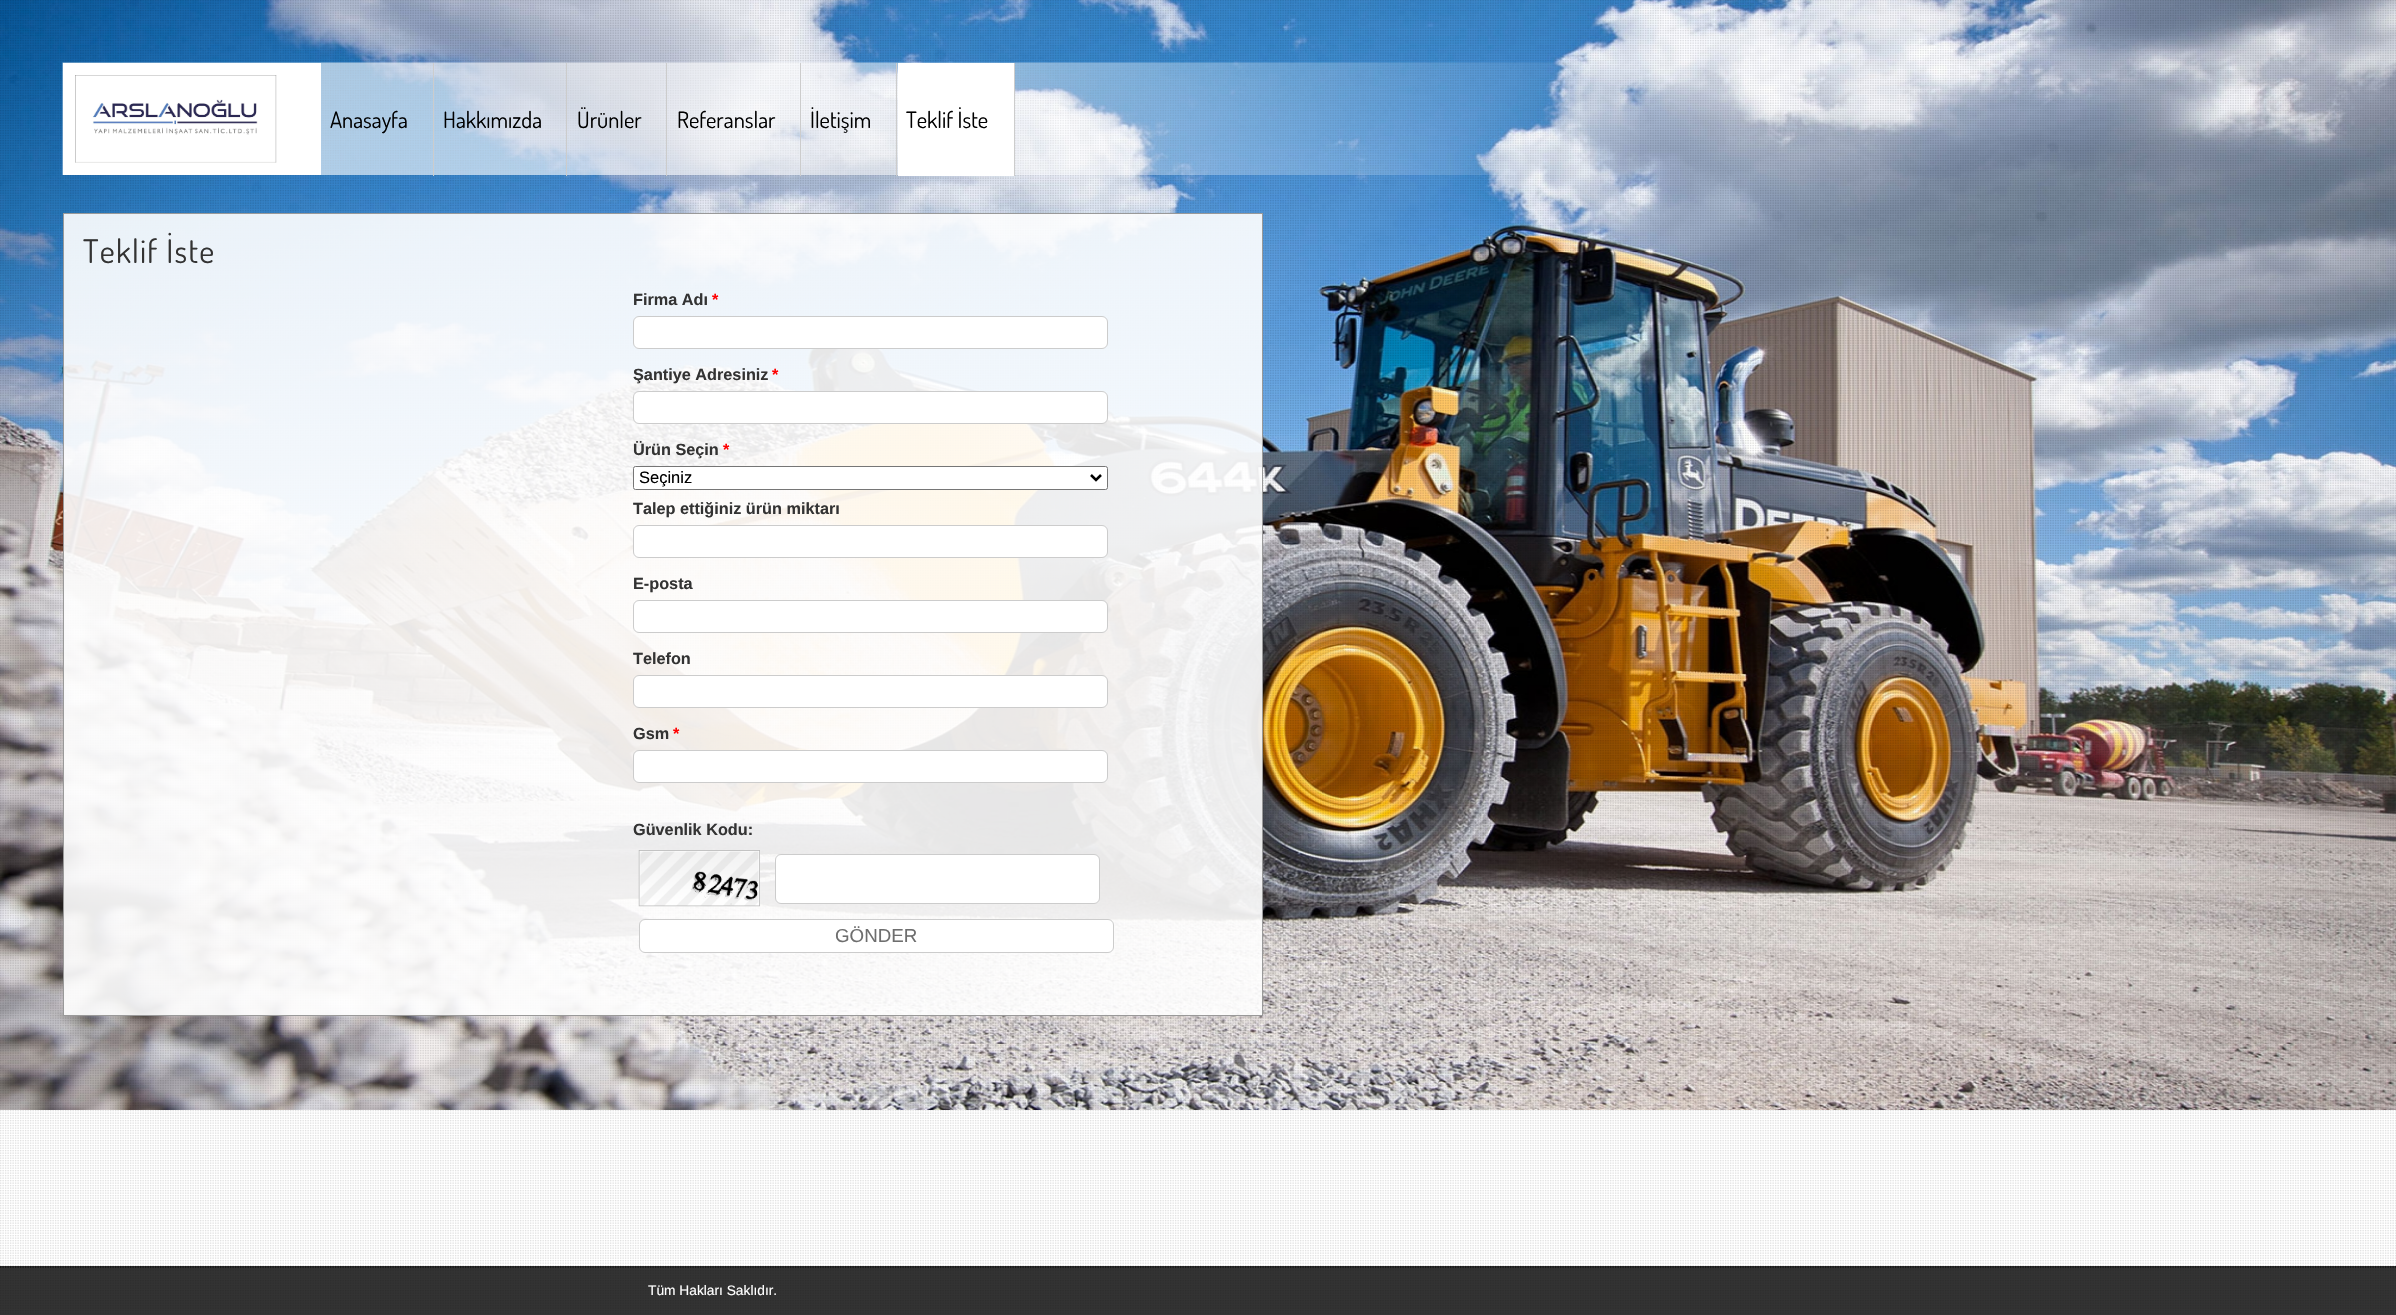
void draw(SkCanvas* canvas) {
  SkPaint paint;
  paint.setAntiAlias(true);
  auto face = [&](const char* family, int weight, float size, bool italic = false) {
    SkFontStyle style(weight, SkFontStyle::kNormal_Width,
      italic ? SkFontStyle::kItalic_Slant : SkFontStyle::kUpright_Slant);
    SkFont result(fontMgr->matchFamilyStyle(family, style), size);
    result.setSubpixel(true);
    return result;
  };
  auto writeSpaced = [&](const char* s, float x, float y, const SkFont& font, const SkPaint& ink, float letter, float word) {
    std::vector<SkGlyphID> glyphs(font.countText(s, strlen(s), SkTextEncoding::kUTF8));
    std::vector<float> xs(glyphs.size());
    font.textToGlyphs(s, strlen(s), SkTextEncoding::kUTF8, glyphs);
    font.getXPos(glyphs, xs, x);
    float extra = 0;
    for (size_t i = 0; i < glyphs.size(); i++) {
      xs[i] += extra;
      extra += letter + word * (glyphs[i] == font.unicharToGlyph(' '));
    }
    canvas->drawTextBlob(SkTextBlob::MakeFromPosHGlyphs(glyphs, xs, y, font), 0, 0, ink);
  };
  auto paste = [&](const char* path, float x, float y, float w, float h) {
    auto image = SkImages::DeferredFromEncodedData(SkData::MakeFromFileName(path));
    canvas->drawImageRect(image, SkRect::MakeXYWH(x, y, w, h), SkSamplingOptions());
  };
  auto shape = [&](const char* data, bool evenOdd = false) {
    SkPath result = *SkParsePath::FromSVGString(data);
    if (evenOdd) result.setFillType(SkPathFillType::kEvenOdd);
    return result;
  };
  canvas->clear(0xffffffff);
  paste("img/1.png", 0, 0, 2396, 1110);
  paste("img/2.png", 0, 0, 2396, 1314);
  paste("img/3.png", 62, 62, 1577, 113);
  paint.setColor(0xffffffff);
  canvas->drawRect(SkRect::MakeXYWH(63, 63, 258, 112), paint);
  paste("img/4.png", 75, 75, 202, 88);
  {
    const struct { float x, y, w, h; SkColor color; } items[] = {
      {433, 63, 1, 113, 0xffcccccc},
      {566, 63, 1, 113, 0xffcccccc},
      {666, 63, 1, 113, 0xffcccccc},
      {800, 63, 1, 113, 0xffcccccc},
      {896, 63, 1, 113, 0xffcccccc},
      {898, 63, 116, 113, 0xffffffff},
      {1014, 63, 1, 113, 0xffcccccc},
    };
    for (auto [x, y, w, h, color] : items) {
      paint.setColor(color);
      canvas->drawRect(SkRect::MakeXYWH(x, y, w, h), paint);
    }
  }
  paint.setColor(0xe6ffffff);
  canvas->drawRect(SkRect::MakeXYWH(63.5f, 213.5f, 1199, 802), paint);
  paint.setStroke(true);
  paint.setStrokeWidth(1);
  paint.setColor(0xff999999);
  canvas->drawRect(SkRect::MakeXYWH(63.5f, 213.5f, 1199, 802), paint);
  paint.setStroke(false);
  paint.setColor(0xffffffff);
  canvas->drawRoundRect(SkRect::MakeXYWH(633.5f, 316.5f, 474, 32), 5.5f, 5.5f, paint);
  paint.setStroke(true);
  paint.setColor(0xffcccccc);
  canvas->drawRoundRect(SkRect::MakeXYWH(633.5f, 316.5f, 474, 32), 5.5f, 5.5f, paint);
  paint.setStroke(false);
  paint.setColor(0xffffffff);
  canvas->drawRoundRect(SkRect::MakeXYWH(633.5f, 391.5f, 474, 32), 5.5f, 5.5f, paint);
  paint.setStroke(true);
  paint.setColor(0xffcccccc);
  canvas->drawRoundRect(SkRect::MakeXYWH(633.5f, 391.5f, 474, 32), 5.5f, 5.5f, paint);
  paint.setStroke(false);
  paint.setColor(0xffffffff);
  canvas->drawRoundRect(SkRect::MakeXYWH(633.5f, 466.5f, 474, 23), 2, 2, paint);
  paint.setStroke(true);
  paint.setColor(0xff767676);
  canvas->drawRoundRect(SkRect::MakeXYWH(633.5f, 466.5f, 474, 23), 2, 2, paint);
  paint.setStrokeWidth(2.5f);
  paint.setColor(0xff000000);
  canvas->drawPath(shape("M1091 475L1096 480L1101 475"), paint);
  paint.setStroke(false);
  paint.setColor(0xffffffff);
  canvas->drawRoundRect(SkRect::MakeXYWH(633.5f, 525.5f, 474, 32), 5.5f, 5.5f, paint);
  paint.setStroke(true);
  paint.setStrokeWidth(1);
  paint.setColor(0xffcccccc);
  canvas->drawRoundRect(SkRect::MakeXYWH(633.5f, 525.5f, 474, 32), 5.5f, 5.5f, paint);
  paint.setStroke(false);
  paint.setColor(0xffffffff);
  canvas->drawRoundRect(SkRect::MakeXYWH(633.5f, 600.5f, 474, 32), 5.5f, 5.5f, paint);
  paint.setStroke(true);
  paint.setColor(0xffcccccc);
  canvas->drawRoundRect(SkRect::MakeXYWH(633.5f, 600.5f, 474, 32), 5.5f, 5.5f, paint);
  paint.setStroke(false);
  paint.setColor(0xffffffff);
  canvas->drawRoundRect(SkRect::MakeXYWH(633.5f, 675.5f, 474, 32), 5.5f, 5.5f, paint);
  paint.setStroke(true);
  paint.setColor(0xffcccccc);
  canvas->drawRoundRect(SkRect::MakeXYWH(633.5f, 675.5f, 474, 32), 5.5f, 5.5f, paint);
  paint.setStroke(false);
  paint.setColor(0xffffffff);
  canvas->drawRoundRect(SkRect::MakeXYWH(633.5f, 750.5f, 474, 32), 5.5f, 5.5f, paint);
  paint.setStroke(true);
  paint.setColor(0xffcccccc);
  canvas->drawRoundRect(SkRect::MakeXYWH(633.5f, 750.5f, 474, 32), 5.5f, 5.5f, paint);
  paste("img/5.png", 638, 850, 122, 57);
  paint.setStroke(false);
  paint.setColor(0xffffffff);
  canvas->drawRoundRect(SkRect::MakeXYWH(775.5f, 854.5f, 324, 49), 5.5f, 5.5f, paint);
  paint.setStroke(true);
  paint.setColor(0xffcccccc);
  canvas->drawRoundRect(SkRect::MakeXYWH(775.5f, 854.5f, 324, 49), 5.5f, 5.5f, paint);
  paint.setStroke(false);
  paint.setColor(0xffffffff);
  canvas->drawRoundRect(SkRect::MakeXYWH(639.5f, 919.5f, 474, 33), 5.5f, 5.5f, paint);
  paint.setStroke(true);
  paint.setColor(0xffcccccc);
  canvas->drawRoundRect(SkRect::MakeXYWH(639.5f, 919.5f, 474, 33), 5.5f, 5.5f, paint);
  paint.setStroke(false);
  paint.setColor(0xcc000000);
  canvas->drawRect(SkRect::MakeXYWH(0, 1266, 2396, 49), paint);
  paint.setStroke(true);
  paint.setStrokeWidth(1.2f);
  paint.setColor(0xff000000);
  paint.setPathEffect(SkDashPathEffect::Make({{1.25f, 1.25f}}, 0));
  canvas->drawPath(shape("M0 1267H2396"), paint);
  paint.setPathEffect(nullptr);
  auto f0 = face("Dosis", 400, 22.5f);
  paint.setStroke(false);
  {
    const struct { const char* s; float x, y; } items[] = {
      {"Anasayfa", 330, 128},
      {"Hakkımızda", 443, 128},
      {"Ürünler", 577, 128},
      {"Referanslar", 677, 128},
      {"İletişim", 810, 128},
      {"Teklif İste", 906, 128},
    };
    for (auto [s, x, y] : items) {
      canvas->drawString(s, x, y, f0, paint);
    }
  }
  auto f1 = face("Dosis", 400, 32.5f);
  paint.setColor(0xff333333);
  writeSpaced("Teklif İste", 83, 263, f1, paint, 1.25f, 0);
  auto f2 = face("Liberation Sans", 700, 16.25f);
  canvas->drawString("Firma Adı", 633, 305, f2, paint);
  paint.setColor(0xffff0000);
  canvas->drawString("*", 712, 305, f2, paint);
  paint.setColor(0xff333333);
  canvas->drawString("Şantiye Adresiniz", 633, 380, f2, paint);
  paint.setColor(0xffff0000);
  canvas->drawString("*", 772, 380, f2, paint);
  paint.setColor(0xff333333);
  canvas->drawString("Ürün Seçin", 633, 455, f2, paint);
  paint.setColor(0xffff0000);
  canvas->drawString("*", 723, 455, f2, paint);
  auto f3 = face("Liberation Sans", 400, 16.5f);
  paint.setColor(0xff000000);
  canvas->drawString("Seçiniz", 639, 483, f3, paint);
  paint.setColor(0xff333333);
  {
    const struct { const char* s; float x, y; } items[] = {
      {"Talep ettiğiniz ürün miktarı", 633, 514},
      {"E-posta", 633, 589},
      {"Telefon", 633, 664},
      {"Gsm", 633, 739},
    };
    for (auto [s, x, y] : items) {
      canvas->drawString(s, x, y, f2, paint);
    }
  }
  paint.setColor(0xffff0000);
  canvas->drawString("*", 673, 739, f2, paint);
  paint.setColor(0xff333333);
  canvas->drawString("Güvenlik Kodu:", 633, 835, f2, paint);
  auto f4 = face("Liberation Sans", 400, 18.75f);
  paint.setColor(0xff6e6e6e);
  canvas->drawString("GÖNDER", 835, 942, f4, paint);
  auto f5 = face("Liberation Sans", 400, 13.75f);
  paint.setColor(0xffffffff);
  canvas->drawString("Tüm Hakları Saklıdır.", 648, 1295, f5, paint);
}
